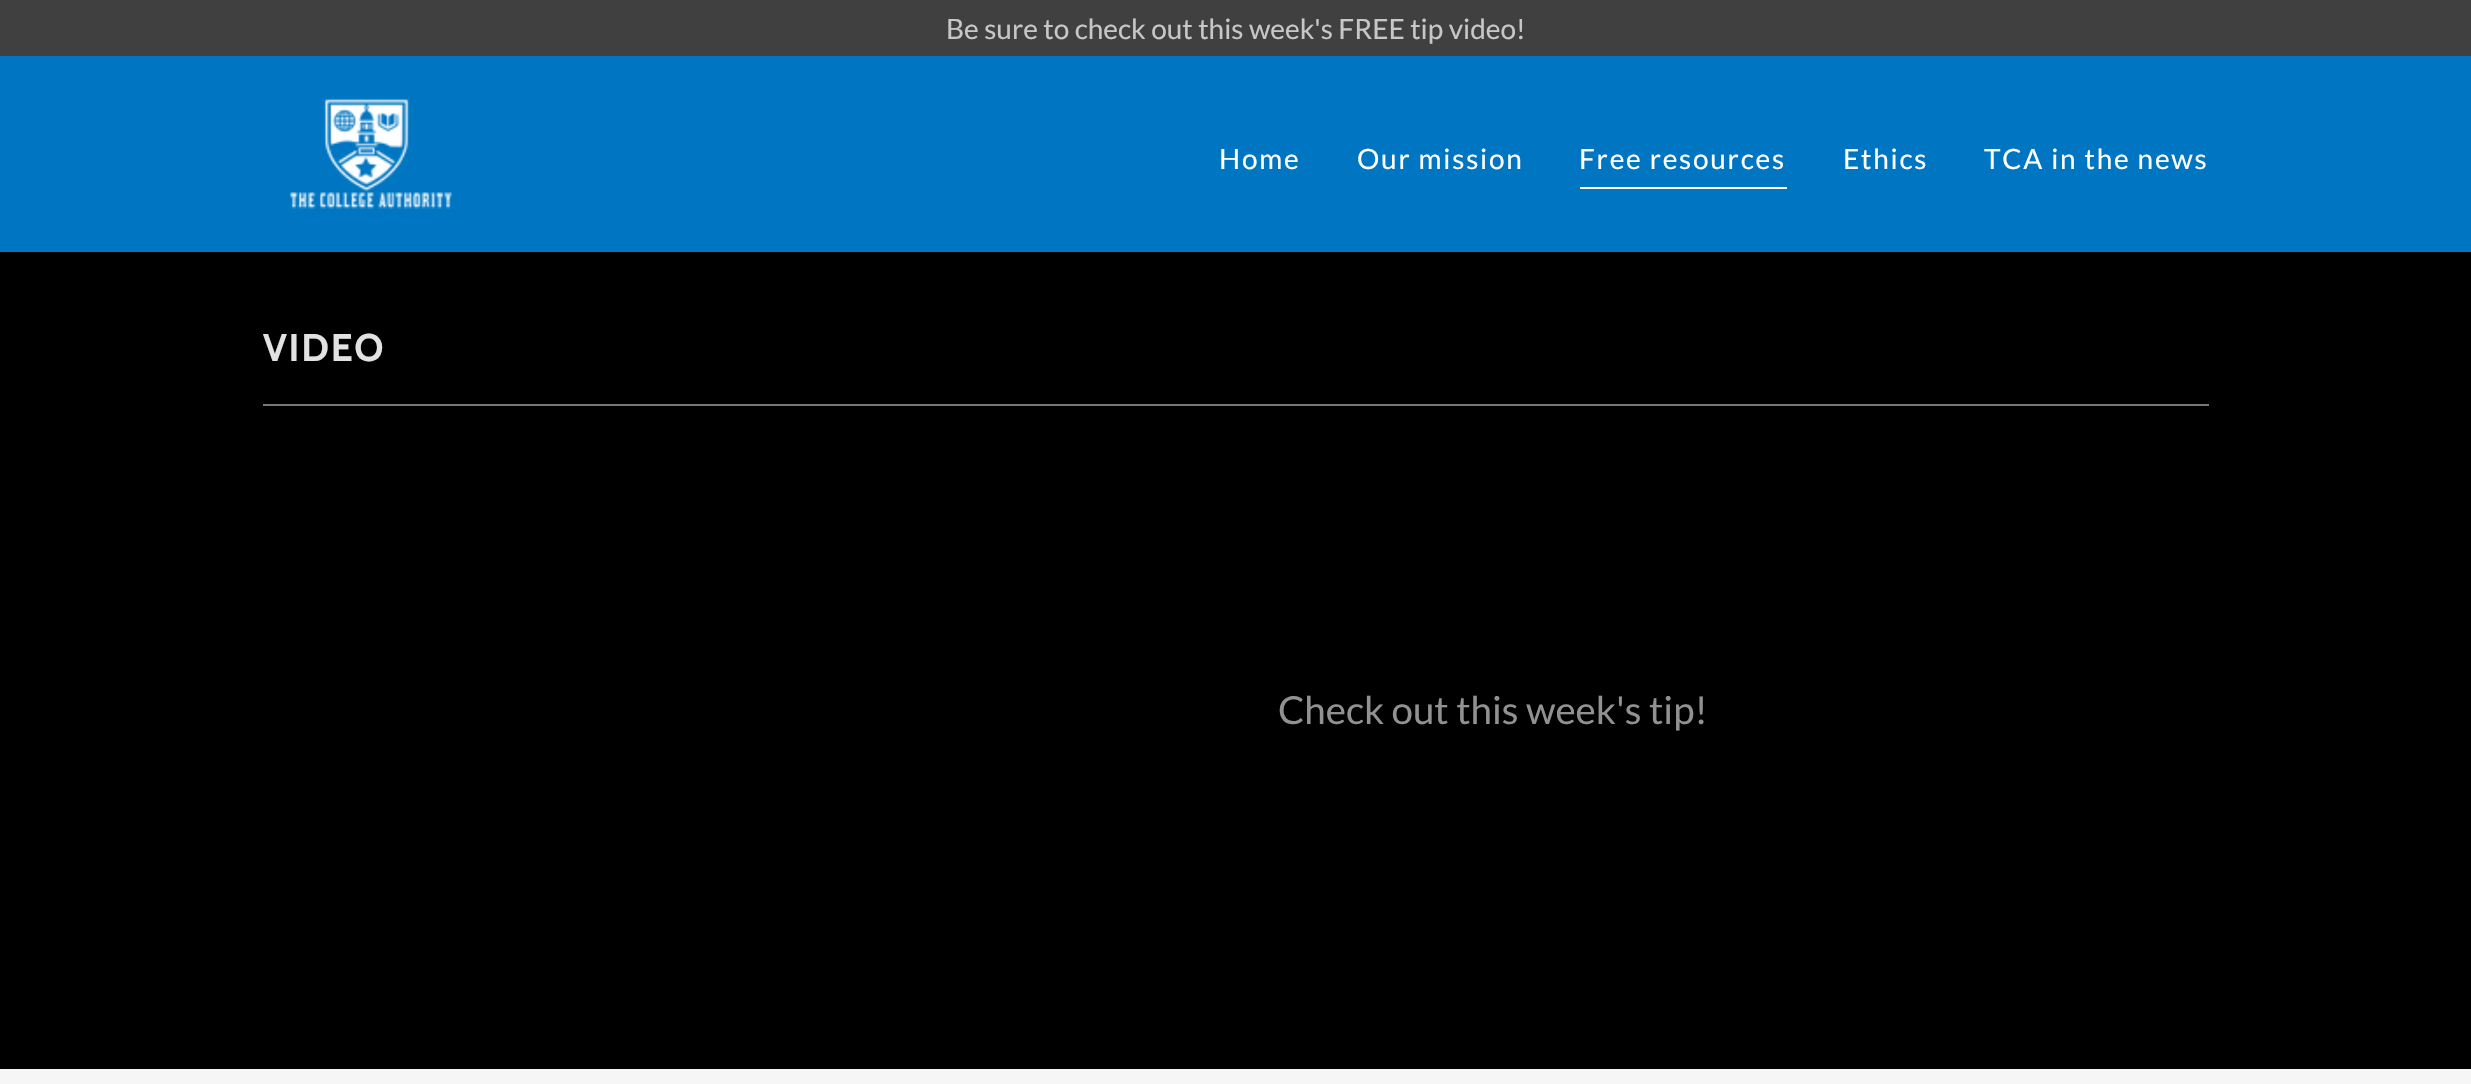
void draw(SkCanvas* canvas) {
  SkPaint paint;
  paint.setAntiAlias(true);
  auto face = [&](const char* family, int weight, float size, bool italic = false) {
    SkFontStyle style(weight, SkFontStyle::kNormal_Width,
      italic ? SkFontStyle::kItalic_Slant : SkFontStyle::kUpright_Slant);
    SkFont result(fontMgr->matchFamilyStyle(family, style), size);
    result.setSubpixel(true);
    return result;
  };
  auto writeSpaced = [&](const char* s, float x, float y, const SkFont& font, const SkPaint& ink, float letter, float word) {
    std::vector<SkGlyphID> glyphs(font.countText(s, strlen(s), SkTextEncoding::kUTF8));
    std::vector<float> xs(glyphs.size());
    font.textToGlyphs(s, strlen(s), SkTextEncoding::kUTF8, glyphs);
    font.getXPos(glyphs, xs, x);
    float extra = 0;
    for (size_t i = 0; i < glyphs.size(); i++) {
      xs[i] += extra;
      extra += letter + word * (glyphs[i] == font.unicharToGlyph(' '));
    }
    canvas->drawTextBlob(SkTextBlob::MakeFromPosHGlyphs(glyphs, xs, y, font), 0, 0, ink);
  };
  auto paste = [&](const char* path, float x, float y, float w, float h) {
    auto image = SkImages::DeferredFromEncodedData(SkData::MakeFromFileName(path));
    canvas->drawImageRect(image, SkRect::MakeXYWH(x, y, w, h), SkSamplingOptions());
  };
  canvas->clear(0xff000000);
  paint.setColor(0xff0075c1);
  canvas->drawRect(SkRect::MakeXYWH(0, 56, 2471, 196), paint);
  paint.setColor(0xff404040);
  canvas->drawRect(SkRect::MakeXYWH(0, 0, 2471, 56), paint);
  paste("img/1.png", 290, 98, 162, 111);
  {
    const struct { float x, y, w, h; SkColor color; } items[] = {
      {1580, 187, 207, 2, 0xffffffff},
      {263, 404, 1946, 2, 0xff777777},
      {0, 1069, 2471, 15, 0xfff6f6f6},
    };
    for (auto [x, y, w, h, color] : items) {
      paint.setColor(color);
      canvas->drawRect(SkRect::MakeXYWH(x, y, w, h), paint);
    }
  }
  auto f0 = face("Lato", 400, 28);
  paint.setColor(0xffc7c7c7);
  canvas->drawString("Be sure to check out this week's FREE tip video!", 946, 39, f0, paint);
  paint.setColor(0xffffffff);
  {
    const struct { const char* s; float x, y; } items[] = {
      {"Home", 1219, 169},
      {"Our mission", 1357, 169},
      {"Free resources", 1579, 169},
      {"Ethics", 1843, 169},
      {"TCA in the news", 1984, 169},
    };
    for (auto [s, x, y] : items) {
      writeSpaced(s, x, y, f0, paint, 1.75f, 0);
    }
  }
  auto f1 = face("Cabin", 700, 38.5f);
  paint.setColor(0xffe2e2e2);
  writeSpaced("VIDEO", 263, 361, f1, paint, 1.75f, 0);
  auto f2 = face("Lato", 400, 38.5f);
  paint.setColor(0xff919191);
  canvas->drawString("Check out this week's tip!", 1278, 724, f2, paint);
}
